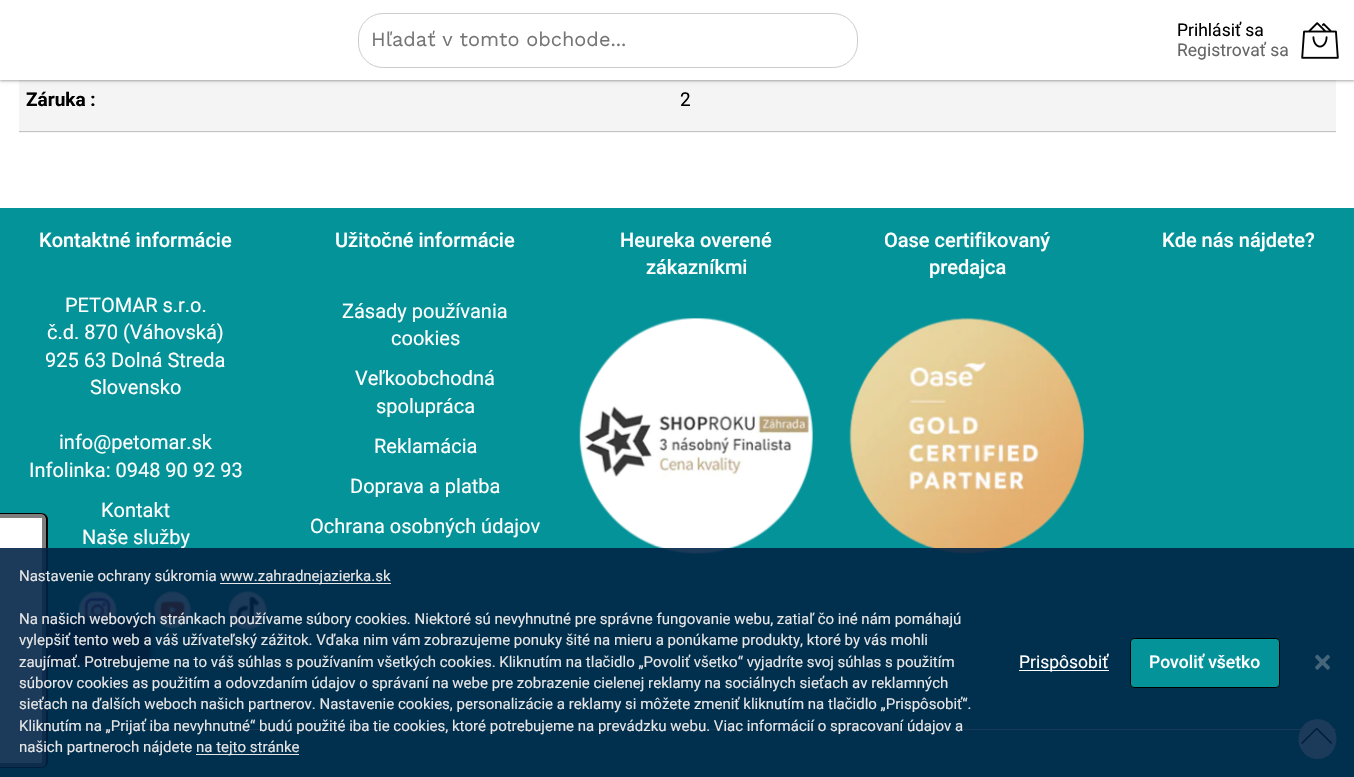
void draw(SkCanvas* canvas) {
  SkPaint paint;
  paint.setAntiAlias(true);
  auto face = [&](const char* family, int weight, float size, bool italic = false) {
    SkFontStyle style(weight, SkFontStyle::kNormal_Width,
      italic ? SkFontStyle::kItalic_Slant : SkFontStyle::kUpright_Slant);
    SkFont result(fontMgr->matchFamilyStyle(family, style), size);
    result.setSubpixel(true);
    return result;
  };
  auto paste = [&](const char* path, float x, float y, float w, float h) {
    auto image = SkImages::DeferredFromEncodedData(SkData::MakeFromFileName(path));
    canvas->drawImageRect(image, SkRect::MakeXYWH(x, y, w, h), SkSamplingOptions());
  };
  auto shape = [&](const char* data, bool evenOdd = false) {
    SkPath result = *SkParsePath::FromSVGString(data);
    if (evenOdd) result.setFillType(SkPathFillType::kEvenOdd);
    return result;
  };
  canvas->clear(0xffffffff);
  paint.setColor(0xfff4f4f4);
  canvas->drawRect(SkRect::MakeXYWH(19, 80, 1317, 53), paint);
  paint.setColor(0x3d000000);
  paint.setMaskFilter(SkMaskFilter::MakeBlur(kNormal_SkBlurStyle, 1));
  canvas->drawRect(SkRect::MakeXYWH(0, 1, 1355, 80), paint);
  paint.setMaskFilter(nullptr);
  paint.setColor(0x1f000000);
  paint.setMaskFilter(SkMaskFilter::MakeBlur(kNormal_SkBlurStyle, 2));
  canvas->drawRect(SkRect::MakeXYWH(0, 1, 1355, 80), paint);
  paint.setMaskFilter(nullptr);
  paint.setColor(0xffffffff);
  canvas->drawRect(SkRect::MakeXYWH(0, 0, 1354, 80), paint);
  paint.setStroke(true);
  paint.setStrokeWidth(1);
  paint.setColor(0xffcccccc);
  canvas->drawRoundRect(SkRect::MakeXYWH(358.5f, 13.5f, 499, 54), 24.5f, 24.5f, paint);
  paste("img/1.png", 1301, 22, 38, 37);
  paint.setStroke(false);
  paint.setColor(0xffc4c4c4);
  canvas->drawRect(SkRect::MakeXYWH(19, 131, 1317, 1), paint);
  paint.setColor(0xff039399);
  canvas->drawRect(SkRect::MakeXYWH(0, 208, 1354, 569), paint);
  paste("img/2.png", 78, 590, 39, 33);
  paste("img/3.png", 153, 590, 39, 39);
  paste("img/4.png", 228, 590, 39, 40);
  paste("img/5.png", 579, 318, 234, 236);
  paste("img/6.png", 849, 318, 235, 236);
  paint.setColor(0xffe1e1e1);
  canvas->drawRect(SkRect::MakeXYWH(48, 729, 1288, 1), paint);
  paint.setColor(0xff111111);
  paint.setMaskFilter(SkMaskFilter::MakeBlur(kNormal_SkBlurStyle, 2));
  canvas->drawRoundRect(SkRect::MakeXYWH(-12, 618, 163, 47), 6, 6, paint);
  paint.setMaskFilter(nullptr);
  paint.setColor(0xff7e7e7e);
  canvas->drawPath(shape("M0 768V513H41C45 513 48 516 48 519V762C48 765 45 768 41 768Z"), paint);
  paint.setColor(0xff000000);
  canvas->drawPath(shape("M0 768V513H41C45 513 48 516 48 519V762C48 765 45 768 41 768ZM0 767V514H41C44 514 46 517 46 519V762C46 765 44 767 41 767Z", true), paint);
  paint.setColor(0xffffffff);
  canvas->drawRect(SkRect::MakeXYWH(0, 518, 42, 245), paint);
  canvas->drawOval(SkRect::MakeXYWH(1298.5f, 719, 38, 40), paint);
  paste("img/7.png", 1301, 727, 32, 17);
  auto f0 = face("Work Sans", 400, 20);
  paint.setColor(0xff757575);
  canvas->drawString("Hľadať v tomto obchode...", 371, 46, f0, paint);
  auto f1 = face("Roboto", 400, 17.5f);
  paint.setColor(0xff000000);
  canvas->drawString("Prihlásiť sa", 1177, 36, f1, paint);
  paint.setColor(0xff666666);
  canvas->drawString("Registrovať sa", 1177, 56, f1, paint);
  auto f2 = face("Roboto", 700, 19);
  paint.setColor(0xff000000);
  canvas->drawString("Záruka :", 26, 106, f2, paint);
  auto f3 = face("Roboto", 400, 19);
  canvas->drawString("2", 680, 106, f3, paint);
  auto f4 = face("Roboto", 500, 20);
  paint.setColor(0xffffffff);
  canvas->drawString("Kontaktné informácie", 39, 247, f4, paint);
  auto f5 = face("Roboto", 400, 20);
  {
    const struct { const char* s; float x, y; } items[] = {
      {"PETOMAR s.r.o.", 65, 312},
      {"č.d. 870 (Váhovská)", 47, 339},
      {"925 63 Dolná Streda", 45, 367},
      {"Slovensko", 90, 394},
      {"info@petomar.sk", 59, 449},
      {"Infolinka: 0948 90 92 93", 29, 477},
      {"Kontakt", 101, 517},
      {"Naše služby", 82, 544},
    };
    for (auto [s, x, y] : items) {
      canvas->drawString(s, x, y, f5, paint);
    }
  }
  canvas->drawString("Užitočné informácie", 335, 247, f4, paint);
  {
    const struct { const char* s; float x, y; } items[] = {
      {"Zásady používania", 342, 318},
      {"cookies", 391, 345},
      {"Veľkoobchodná", 355, 385},
      {"spolupráca", 376, 413},
      {"Reklamácia", 374, 453},
      {"Doprava a platba", 350, 493},
      {"Ochrana osobných údajov", 310, 533},
    };
    for (auto [s, x, y] : items) {
      canvas->drawString(s, x, y, f5, paint);
    }
  }
  {
    const struct { const char* s; float x, y; } items[] = {
      {"Heureka overené", 620, 247},
      {"zákazníkmi", 646, 274},
      {"Oase certifikovaný", 884, 247},
      {"predajca", 929, 274},
      {"Kde nás nájdete?", 1162, 247},
    };
    for (auto [s, x, y] : items) {
      canvas->drawString(s, x, y, f4, paint);
    }
  }
  paint.setColor(0xe3002244);
  canvas->drawRect(SkRect::MakeXYWH(0, 548, 1354, 229), paint);
  auto f6 = face("Roboto", 400, 15);
  paint.setColor(0xffe6e6e6);
  canvas->drawString("Nastavenie ochrany súkromia", 19, 581, f6, paint);
  canvas->drawRect(SkRect::MakeXYWH(220, 583, 171, 1), paint);
  {
    const struct { const char* s; float x, y; } items[] = {
      {"www.zahradnejazierka.sk", 220, 581},
      {"Na našich webových stránkach používame súbory cookies. Niektoré sú nevyhnutné pre správne fungovanie webu, zatiaľ čo iné nám pomáhajú", 19, 624},
      {"vylepšiť tento web a váš užívateľský zážitok. Vďaka nim vám zobrazujeme ponuky šité na mieru a ponúkame produkty, ktoré by vás mohli", 19, 645},
      {"zaujímať. Potrebujeme na to váš súhlas s používaním všetkých cookies. Kliknutím na tlačidlo „Povoliť všetko“ vyjadríte svoj súhlas s použitím", 19, 667},
      {"súborov cookies as použitím a odovzdaním údajov o správaní na webe pre zobrazenie cielenej reklamy na sociálnych sieťach av reklamných", 19, 688},
      {"sieťach na ďalších weboch našich partnerov. Nastavenie cookies, personalizácie a reklamy si môžete zmeniť kliknutím na tlačidlo „Prispôsobiť“.", 19, 709},
      {"Kliknutím na „Prijať iba nevyhnutné“ budú použité iba tie cookies, ktoré potrebujeme na prevádzku webu. Viac informácií o spracovaní údajov a", 19, 731},
      {"našich partneroch nájdete", 19, 752},
    };
    for (auto [s, x, y] : items) {
      canvas->drawString(s, x, y, f6, paint);
    }
  }
  canvas->drawRect(SkRect::MakeXYWH(196, 754, 103, 1), paint);
  canvas->drawString("na tejto stránke", 196, 752, f6, paint);
  paint.setColor(0xffffffff);
  canvas->drawRect(SkRect::MakeXYWH(1019, 670, 90, 1), paint);
  canvas->drawString("Prispôsobiť", 1019, 668, f1, paint);
  paint.setColor(0xff039399);
  canvas->drawRoundRect(SkRect::MakeXYWH(1130.5f, 638.5f, 149, 49), 3.5f, 3.5f, paint);
  paint.setStroke(true);
  paint.setColor(0xff000000);
  canvas->drawRoundRect(SkRect::MakeXYWH(1130.5f, 638.5f, 149, 49), 3.5f, 3.5f, paint);
  auto f7 = face("Roboto", 500, 17.5f);
  paint.setStroke(false);
  paint.setColor(0xffffffff);
  canvas->drawString("Povoliť všetko", 1149, 668, f7, paint);
  paint.setColor(0xff45657b);
  canvas->drawPath(shape("M1318 655L1329.5 666.5C1330 667 1330 668 1329.5 668.5L1328.5 669.5C1328 670 1327.5 670 1327 669.5L1315.5 658C1315 657.5 1315 656.5 1315.5 656L1316.5 655C1317 654.5 1317.5 654.5 1318 655Z"), paint);
  canvas->drawPath(shape("M1315.5 666.5L1327 655C1327.5 654.5 1328 654.5 1328.5 655L1329.5 656C1330 656.5 1330 657.5 1329.5 658L1318 669.5C1317.5 670 1317 670 1316.5 669.5L1315.5 668.5C1315 668 1315 667 1315.5 666.5Z"), paint);
}
